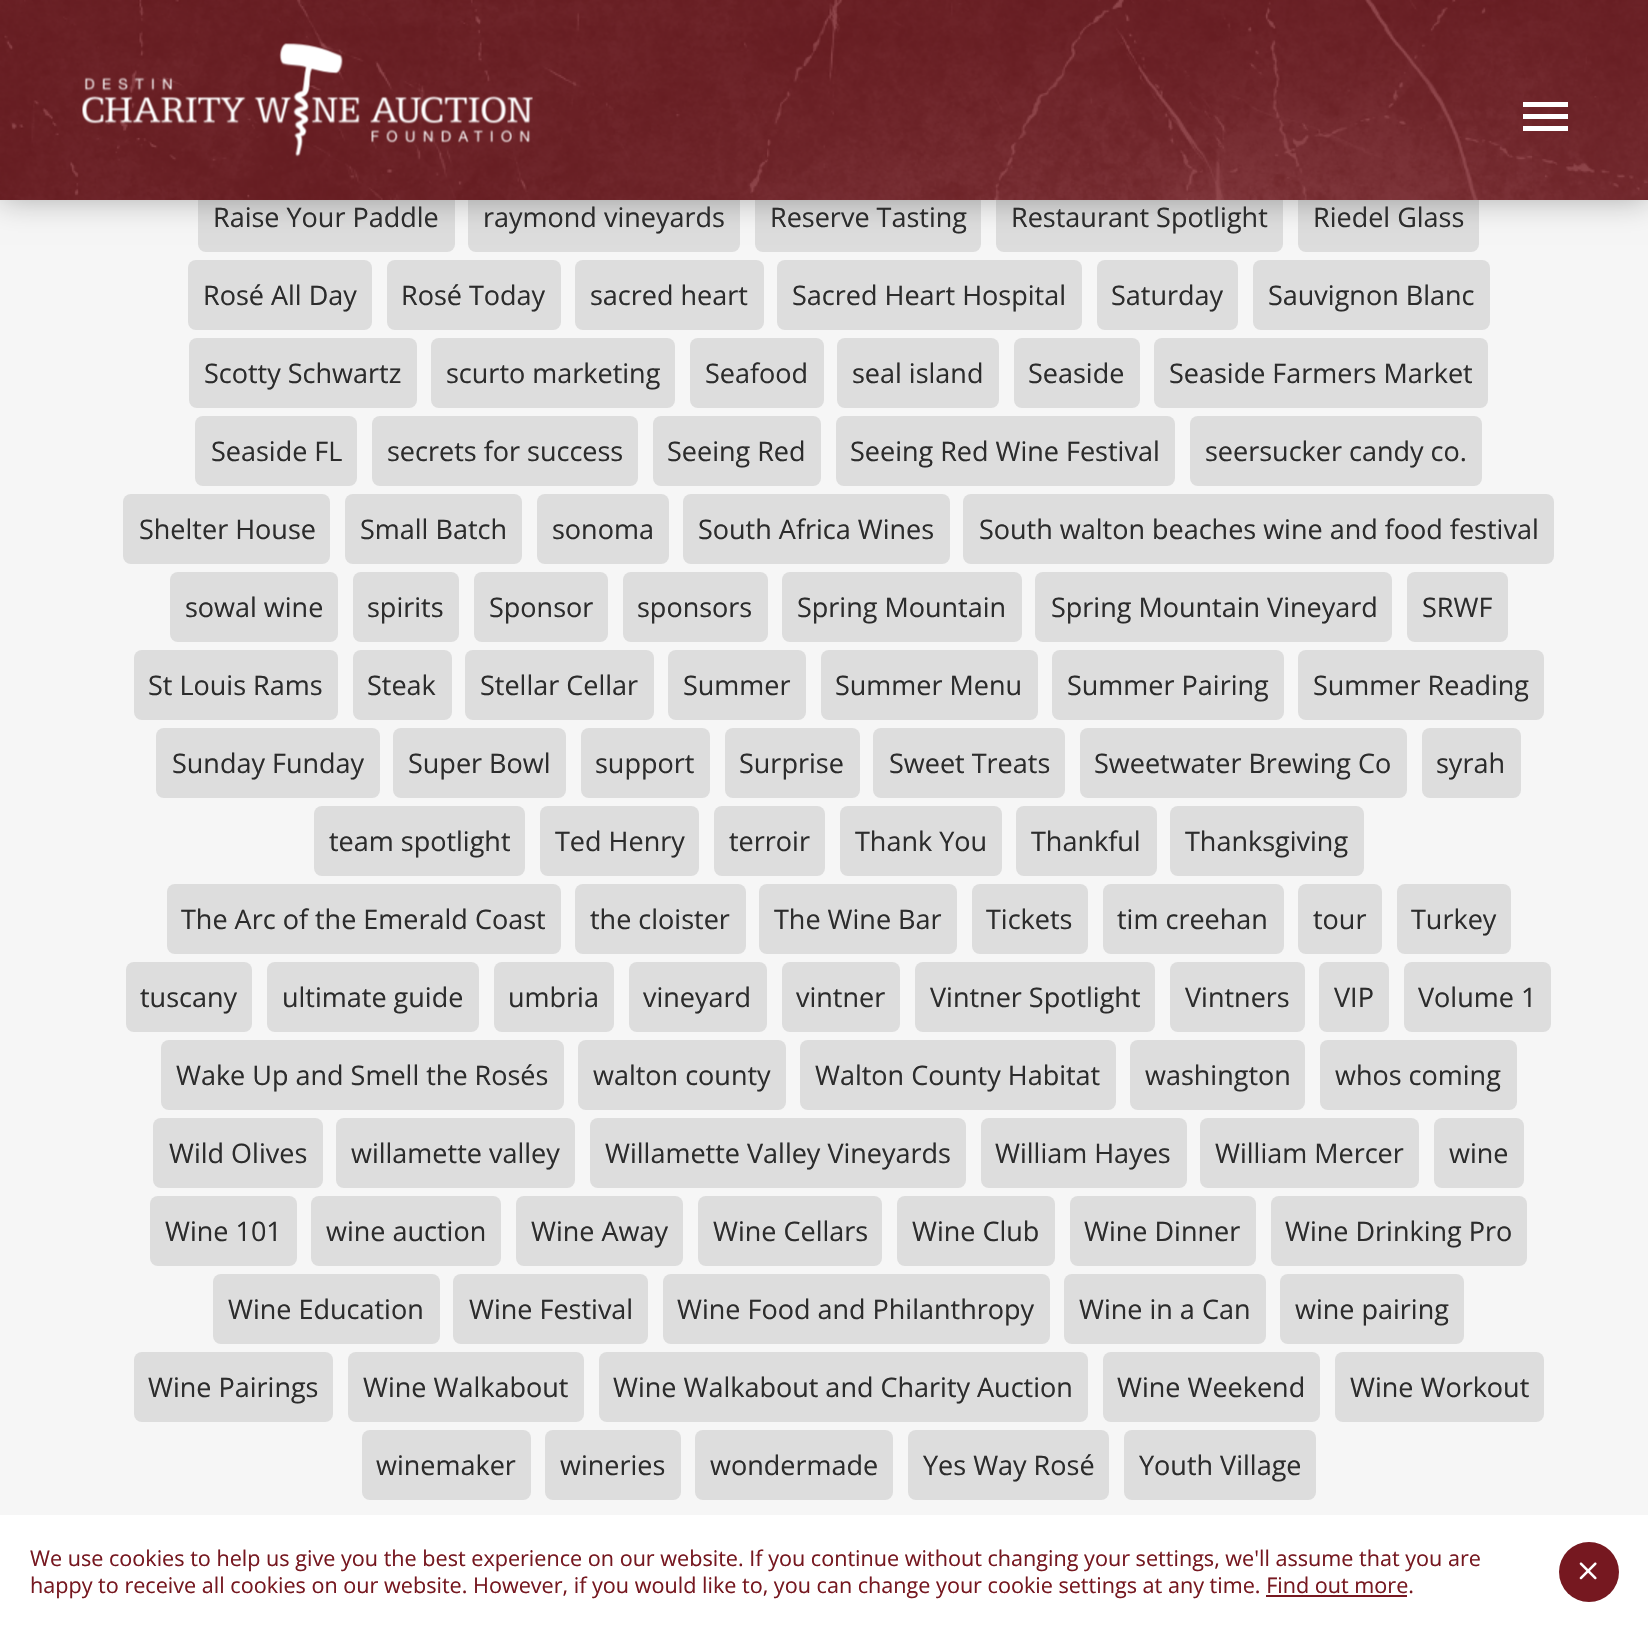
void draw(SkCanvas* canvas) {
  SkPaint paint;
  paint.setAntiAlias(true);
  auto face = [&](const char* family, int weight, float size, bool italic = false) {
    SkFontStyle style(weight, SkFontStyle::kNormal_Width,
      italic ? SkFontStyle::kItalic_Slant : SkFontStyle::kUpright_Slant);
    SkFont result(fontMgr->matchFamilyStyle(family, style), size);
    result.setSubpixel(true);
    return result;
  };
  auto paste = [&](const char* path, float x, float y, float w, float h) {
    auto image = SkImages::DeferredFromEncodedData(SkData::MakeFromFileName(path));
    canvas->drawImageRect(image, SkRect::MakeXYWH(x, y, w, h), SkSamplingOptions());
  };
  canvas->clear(0xfff6f6f6);
  paint.setColor(0xffdddddd);
  canvas->drawRoundRect(SkRect::MakeXYWH(198, 182, 257, 70), 8, 8, paint);
  canvas->drawRoundRect(SkRect::MakeXYWH(468, 182, 272, 70), 8, 8, paint);
  canvas->drawRoundRect(SkRect::MakeXYWH(755, 182, 226, 70), 8, 8, paint);
  canvas->drawRoundRect(SkRect::MakeXYWH(996, 182, 287, 70), 8, 8, paint);
  canvas->drawRoundRect(SkRect::MakeXYWH(1298, 182, 181, 70), 8, 8, paint);
  paint.setColor(0x4d000000);
  paint.setMaskFilter(SkMaskFilter::MakeBlur(kNormal_SkBlurStyle, 15));
  canvas->drawRect(SkRect::MakeXYWH(0, 0, 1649, 200), paint);
  paint.setMaskFilter(nullptr);
  paste("img/1.png", 0, 0, 1648, 200);
  paste("img/2.png", 82, 43, 451, 114);
  {
    const struct { float x, y, w, h; SkColor color; } items[] = {
      {1523, 114, 45, 5, 0xffffffff},
      {1523, 102, 45, 5, 0xffffffff},
      {1523, 126, 45, 5, 0xffffffff},
    };
    for (auto [x, y, w, h, color] : items) {
      paint.setColor(color);
      canvas->drawRect(SkRect::MakeXYWH(x, y, w, h), paint);
    }
  }
  paint.setColor(0xffdddddd);
  canvas->drawRoundRect(SkRect::MakeXYWH(188, 260, 184, 70), 8, 8, paint);
  canvas->drawRoundRect(SkRect::MakeXYWH(387, 260, 174, 70), 8, 8, paint);
  canvas->drawRoundRect(SkRect::MakeXYWH(575, 260, 189, 70), 8, 8, paint);
  canvas->drawRoundRect(SkRect::MakeXYWH(777, 260, 305, 70), 8, 8, paint);
  canvas->drawRoundRect(SkRect::MakeXYWH(1097, 260, 141, 70), 8, 8, paint);
  canvas->drawRoundRect(SkRect::MakeXYWH(1253, 260, 237, 70), 8, 8, paint);
  canvas->drawRoundRect(SkRect::MakeXYWH(189, 338, 228, 70), 8, 8, paint);
  canvas->drawRoundRect(SkRect::MakeXYWH(431, 338, 244, 70), 8, 8, paint);
  canvas->drawRoundRect(SkRect::MakeXYWH(690, 338, 134, 70), 8, 8, paint);
  canvas->drawRoundRect(SkRect::MakeXYWH(837, 338, 162, 70), 8, 8, paint);
  canvas->drawRoundRect(SkRect::MakeXYWH(1014, 338, 126, 70), 8, 8, paint);
  canvas->drawRoundRect(SkRect::MakeXYWH(1154, 338, 334, 70), 8, 8, paint);
  canvas->drawRoundRect(SkRect::MakeXYWH(195, 416, 162, 70), 8, 8, paint);
  canvas->drawRoundRect(SkRect::MakeXYWH(372, 416, 266, 70), 8, 8, paint);
  canvas->drawRoundRect(SkRect::MakeXYWH(653, 416, 168, 70), 8, 8, paint);
  canvas->drawRoundRect(SkRect::MakeXYWH(836, 416, 339, 70), 8, 8, paint);
  canvas->drawRoundRect(SkRect::MakeXYWH(1190, 416, 292, 70), 8, 8, paint);
  canvas->drawRoundRect(SkRect::MakeXYWH(123, 494, 207, 70), 8, 8, paint);
  canvas->drawRoundRect(SkRect::MakeXYWH(345, 494, 177, 70), 8, 8, paint);
  canvas->drawRoundRect(SkRect::MakeXYWH(537, 494, 132, 70), 8, 8, paint);
  canvas->drawRoundRect(SkRect::MakeXYWH(683, 494, 267, 70), 8, 8, paint);
  canvas->drawRoundRect(SkRect::MakeXYWH(963, 494, 591, 70), 8, 8, paint);
  canvas->drawRoundRect(SkRect::MakeXYWH(170, 572, 168, 70), 8, 8, paint);
  canvas->drawRoundRect(SkRect::MakeXYWH(353, 572, 106, 70), 8, 8, paint);
  canvas->drawRoundRect(SkRect::MakeXYWH(474, 572, 134, 70), 8, 8, paint);
  canvas->drawRoundRect(SkRect::MakeXYWH(623, 572, 145, 70), 8, 8, paint);
  canvas->drawRoundRect(SkRect::MakeXYWH(782, 572, 240, 70), 8, 8, paint);
  canvas->drawRoundRect(SkRect::MakeXYWH(1035, 572, 357, 70), 8, 8, paint);
  canvas->drawRoundRect(SkRect::MakeXYWH(1407, 572, 101, 70), 8, 8, paint);
  canvas->drawRoundRect(SkRect::MakeXYWH(134, 650, 204, 70), 8, 8, paint);
  canvas->drawRoundRect(SkRect::MakeXYWH(353, 650, 99, 70), 8, 8, paint);
  canvas->drawRoundRect(SkRect::MakeXYWH(465, 650, 189, 70), 8, 8, paint);
  canvas->drawRoundRect(SkRect::MakeXYWH(668, 650, 138, 70), 8, 8, paint);
  canvas->drawRoundRect(SkRect::MakeXYWH(821, 650, 217, 70), 8, 8, paint);
  canvas->drawRoundRect(SkRect::MakeXYWH(1052, 650, 232, 70), 8, 8, paint);
  canvas->drawRoundRect(SkRect::MakeXYWH(1298, 650, 246, 70), 8, 8, paint);
  canvas->drawRoundRect(SkRect::MakeXYWH(156, 728, 224, 70), 8, 8, paint);
  canvas->drawRoundRect(SkRect::MakeXYWH(393, 728, 173, 70), 8, 8, paint);
  canvas->drawRoundRect(SkRect::MakeXYWH(581, 728, 129, 70), 8, 8, paint);
  canvas->drawRoundRect(SkRect::MakeXYWH(725, 728, 135, 70), 8, 8, paint);
  canvas->drawRoundRect(SkRect::MakeXYWH(873, 728, 192, 70), 8, 8, paint);
  canvas->drawRoundRect(SkRect::MakeXYWH(1080, 728, 327, 70), 8, 8, paint);
  canvas->drawRoundRect(SkRect::MakeXYWH(1422, 728, 99, 70), 8, 8, paint);
  canvas->drawRoundRect(SkRect::MakeXYWH(314, 806, 211, 70), 8, 8, paint);
  canvas->drawRoundRect(SkRect::MakeXYWH(540, 806, 159, 70), 8, 8, paint);
  canvas->drawRoundRect(SkRect::MakeXYWH(714, 806, 111, 70), 8, 8, paint);
  canvas->drawRoundRect(SkRect::MakeXYWH(840, 806, 162, 70), 8, 8, paint);
  canvas->drawRoundRect(SkRect::MakeXYWH(1016, 806, 141, 70), 8, 8, paint);
  canvas->drawRoundRect(SkRect::MakeXYWH(1170, 806, 194, 70), 8, 8, paint);
  canvas->drawRoundRect(SkRect::MakeXYWH(167, 884, 394, 70), 8, 8, paint);
  canvas->drawRoundRect(SkRect::MakeXYWH(575, 884, 171, 70), 8, 8, paint);
  canvas->drawRoundRect(SkRect::MakeXYWH(759, 884, 198, 70), 8, 8, paint);
  canvas->drawRoundRect(SkRect::MakeXYWH(972, 884, 116, 70), 8, 8, paint);
  canvas->drawRoundRect(SkRect::MakeXYWH(1103, 884, 181, 70), 8, 8, paint);
  canvas->drawRoundRect(SkRect::MakeXYWH(1298, 884, 84, 70), 8, 8, paint);
  canvas->drawRoundRect(SkRect::MakeXYWH(1397, 884, 114, 70), 8, 8, paint);
  canvas->drawRoundRect(SkRect::MakeXYWH(126, 962, 126, 70), 8, 8, paint);
  canvas->drawRoundRect(SkRect::MakeXYWH(267, 962, 212, 70), 8, 8, paint);
  canvas->drawRoundRect(SkRect::MakeXYWH(494, 962, 120, 70), 8, 8, paint);
  canvas->drawRoundRect(SkRect::MakeXYWH(629, 962, 138, 70), 8, 8, paint);
  canvas->drawRoundRect(SkRect::MakeXYWH(782, 962, 118, 70), 8, 8, paint);
  canvas->drawRoundRect(SkRect::MakeXYWH(915, 962, 240, 70), 8, 8, paint);
  canvas->drawRoundRect(SkRect::MakeXYWH(1170, 962, 135, 70), 8, 8, paint);
  canvas->drawRoundRect(SkRect::MakeXYWH(1319, 962, 70, 70), 8, 8, paint);
  canvas->drawRoundRect(SkRect::MakeXYWH(1404, 962, 147, 70), 8, 8, paint);
  canvas->drawRoundRect(SkRect::MakeXYWH(161, 1040, 403, 70), 8, 8, paint);
  canvas->drawRoundRect(SkRect::MakeXYWH(578, 1040, 208, 70), 8, 8, paint);
  canvas->drawRoundRect(SkRect::MakeXYWH(800, 1040, 316, 70), 8, 8, paint);
  canvas->drawRoundRect(SkRect::MakeXYWH(1130, 1040, 175, 70), 8, 8, paint);
  canvas->drawRoundRect(SkRect::MakeXYWH(1320, 1040, 197, 70), 8, 8, paint);
  canvas->drawRoundRect(SkRect::MakeXYWH(153, 1118, 170, 70), 8, 8, paint);
  canvas->drawRoundRect(SkRect::MakeXYWH(336, 1118, 239, 70), 8, 8, paint);
  canvas->drawRoundRect(SkRect::MakeXYWH(590, 1118, 376, 70), 8, 8, paint);
  canvas->drawRoundRect(SkRect::MakeXYWH(981, 1118, 206, 70), 8, 8, paint);
  canvas->drawRoundRect(SkRect::MakeXYWH(1200, 1118, 219, 70), 8, 8, paint);
  canvas->drawRoundRect(SkRect::MakeXYWH(1434, 1118, 90, 70), 8, 8, paint);
  canvas->drawRoundRect(SkRect::MakeXYWH(150, 1196, 147, 70), 8, 8, paint);
  canvas->drawRoundRect(SkRect::MakeXYWH(311, 1196, 190, 70), 8, 8, paint);
  canvas->drawRoundRect(SkRect::MakeXYWH(516, 1196, 167, 70), 8, 8, paint);
  canvas->drawRoundRect(SkRect::MakeXYWH(698, 1196, 184, 70), 8, 8, paint);
  canvas->drawRoundRect(SkRect::MakeXYWH(897, 1196, 158, 70), 8, 8, paint);
  canvas->drawRoundRect(SkRect::MakeXYWH(1070, 1196, 186, 70), 8, 8, paint);
  canvas->drawRoundRect(SkRect::MakeXYWH(1271, 1196, 256, 70), 8, 8, paint);
  canvas->drawRoundRect(SkRect::MakeXYWH(213, 1274, 227, 70), 8, 8, paint);
  canvas->drawRoundRect(SkRect::MakeXYWH(453, 1274, 195, 70), 8, 8, paint);
  canvas->drawRoundRect(SkRect::MakeXYWH(663, 1274, 387, 70), 8, 8, paint);
  canvas->drawRoundRect(SkRect::MakeXYWH(1064, 1274, 202, 70), 8, 8, paint);
  canvas->drawRoundRect(SkRect::MakeXYWH(1280, 1274, 184, 70), 8, 8, paint);
  canvas->drawRoundRect(SkRect::MakeXYWH(134, 1352, 199, 70), 8, 8, paint);
  canvas->drawRoundRect(SkRect::MakeXYWH(348, 1352, 236, 70), 8, 8, paint);
  canvas->drawRoundRect(SkRect::MakeXYWH(599, 1352, 489, 70), 8, 8, paint);
  canvas->drawRoundRect(SkRect::MakeXYWH(1103, 1352, 217, 70), 8, 8, paint);
  canvas->drawRoundRect(SkRect::MakeXYWH(1335, 1352, 209, 70), 8, 8, paint);
  canvas->drawRoundRect(SkRect::MakeXYWH(362, 1430, 169, 70), 8, 8, paint);
  canvas->drawRoundRect(SkRect::MakeXYWH(545, 1430, 136, 70), 8, 8, paint);
  canvas->drawRoundRect(SkRect::MakeXYWH(695, 1430, 198, 70), 8, 8, paint);
  canvas->drawRoundRect(SkRect::MakeXYWH(908, 1430, 201, 70), 8, 8, paint);
  canvas->drawRoundRect(SkRect::MakeXYWH(1124, 1430, 192, 70), 8, 8, paint);
  paint.setColor(0xffffffff);
  canvas->drawRect(SkRect::MakeXYWH(0, 1515, 1648, 114), paint);
  paint.setColor(0xff761820);
  canvas->drawCircle(1589, 1572, 30, paint);
  paste("img/3.png", 1579, 1562, 18, 18);
  canvas->drawRect(SkRect::MakeXYWH(1266, 1595, 141, 2), paint);
  auto f0 = face("Open Sans", 400, 27);
  paint.setColor(0xff2c2c2c);
  {
    const struct { const char* s; float x, y; } items[] = {
      {"Raise Your Paddle", 213, 227},
      {"raymond vineyards", 483, 227},
      {"Reserve Tasting", 770, 227},
      {"Restaurant Spotlight", 1011, 227},
      {"Riedel Glass", 1313, 227},
      {"Rosé All Day", 203, 305},
      {"Rosé Today", 401, 305},
      {"sacred heart", 590, 305},
      {"Sacred Heart Hospital", 792, 305},
      {"Saturday", 1111, 305},
      {"Sauvignon Blanc", 1268, 305},
      {"Scotty Schwartz", 204, 383},
      {"scurto marketing", 446, 383},
      {"Seafood", 705, 383},
      {"seal island", 852, 383},
      {"Seaside", 1028, 383},
      {"Seaside Farmers Market", 1169, 383},
      {"Seaside FL", 211, 461},
      {"secrets for success", 387, 461},
      {"Seeing Red", 667, 461},
      {"Seeing Red Wine Festival", 850, 461},
      {"seersucker candy co.", 1205, 461},
      {"Shelter House", 139, 539},
      {"Small Batch", 360, 539},
      {"sonoma", 552, 539},
      {"South Africa Wines", 698, 539},
      {"South walton beaches wine and food festival", 979, 539},
      {"sowal wine", 185, 617},
      {"spirits", 367, 617},
      {"Sponsor", 489, 617},
      {"sponsors", 637, 617},
      {"Spring Mountain", 797, 617},
      {"Spring Mountain Vineyard", 1051, 617},
      {"SRWF", 1422, 617},
      {"St Louis Rams", 148, 695},
      {"Steak", 367, 695},
      {"Stellar Cellar", 480, 695},
      {"Summer", 683, 695},
      {"Summer Menu", 835, 695},
      {"Summer Pairing", 1067, 695},
      {"Summer Reading", 1313, 695},
      {"Sunday Funday", 172, 773},
      {"Super Bowl", 408, 773},
      {"support", 595, 773},
      {"Surprise", 739, 773},
      {"Sweet Treats", 889, 773},
      {"Sweetwater Brewing Co", 1094, 773},
      {"syrah", 1436, 773},
      {"team spotlight", 329, 851},
      {"Ted Henry", 555, 851},
      {"terroir", 729, 851},
      {"Thank You", 855, 851},
      {"Thankful", 1031, 851},
      {"Thanksgiving", 1185, 851},
      {"The Arc of the Emerald Coast", 181, 929},
      {"the cloister", 590, 929},
      {"The Wine Bar", 774, 929},
      {"Tickets", 986, 929},
      {"tim creehan", 1117, 929},
      {"tour", 1313, 929},
      {"Turkey", 1411, 929},
      {"tuscany", 140, 1007},
      {"ultimate guide", 282, 1007},
      {"umbria", 508, 1007},
      {"vineyard", 643, 1007},
      {"vintner", 796, 1007},
      {"Vintner Spotlight", 930, 1007},
      {"Vintners", 1185, 1007},
      {"VIP", 1334, 1007},
      {"Volume 1", 1418, 1007},
      {"Wake Up and Smell the Rosés", 176, 1085},
      {"walton county", 593, 1085},
      {"Walton County Habitat", 815, 1085},
      {"washington", 1145, 1085},
      {"whos coming", 1335, 1085},
      {"Wild Olives", 169, 1163},
      {"willamette valley", 351, 1163},
      {"Willamette Valley Vineyards", 605, 1163},
      {"William Hayes", 995, 1163},
      {"William Mercer", 1215, 1163},
      {"wine", 1449, 1163},
      {"Wine 101", 165, 1241},
      {"wine auction", 326, 1241},
      {"Wine Away", 531, 1241},
      {"Wine Cellars", 713, 1241},
      {"Wine Club", 912, 1241},
      {"Wine Dinner", 1084, 1241},
      {"Wine Drinking Pro", 1285, 1241},
      {"Wine Education", 228, 1319},
      {"Wine Festival", 469, 1319},
      {"Wine Food and Philanthropy", 677, 1319},
      {"Wine in a Can", 1079, 1319},
      {"wine pairing", 1295, 1319},
      {"Wine Pairings", 148, 1397},
      {"Wine Walkabout", 363, 1397},
      {"Wine Walkabout and Charity Auction", 613, 1397},
      {"Wine Weekend", 1117, 1397},
      {"Wine Workout", 1350, 1397},
      {"winemaker", 376, 1475},
      {"wineries", 560, 1475},
      {"wondermade", 710, 1475},
      {"Yes Way Rosé", 923, 1475},
      {"Youth Village", 1139, 1475},
    };
    for (auto [s, x, y] : items) {
      canvas->drawString(s, x, y, f0, paint);
    }
  }
  auto f1 = face("Open Sans", 400, 21.6f);
  paint.setColor(0xff761820);
  canvas->drawString("We use cookies to help us give you the best experience on our website. If you continue without changing your settings, we'll assume that you are", 30, 1566, f1, paint);
  canvas->drawString("happy to receive all cookies on our website. However, if you would like to, you can change your cookie settings at any time. Find out more.", 30, 1593, f1, paint);
}
